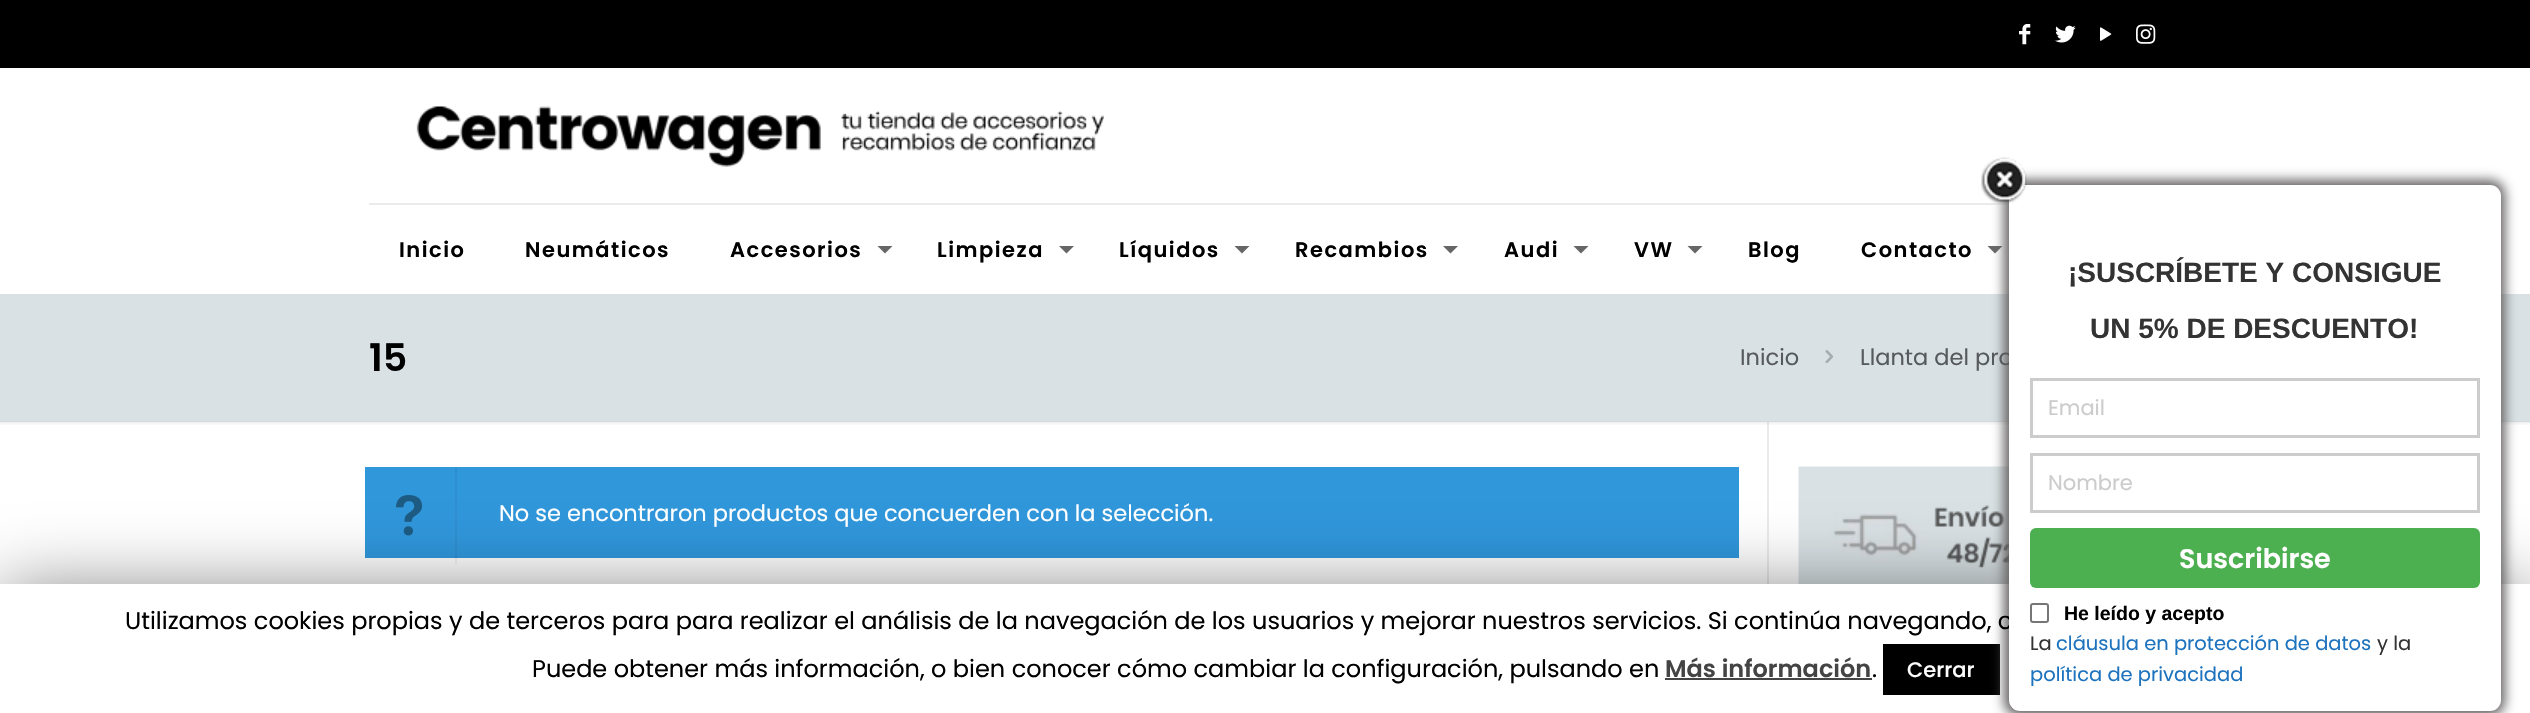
void draw(SkCanvas* canvas) {
  SkPaint paint;
  paint.setAntiAlias(true);
  auto face = [&](const char* family, int weight, float size, bool italic = false) {
    SkFontStyle style(weight, SkFontStyle::kNormal_Width,
      italic ? SkFontStyle::kItalic_Slant : SkFontStyle::kUpright_Slant);
    SkFont result(fontMgr->matchFamilyStyle(family, style), size);
    result.setSubpixel(true);
    return result;
  };
  auto writeSpaced = [&](const char* s, float x, float y, const SkFont& font, const SkPaint& ink, float letter, float word) {
    std::vector<SkGlyphID> glyphs(font.countText(s, strlen(s), SkTextEncoding::kUTF8));
    std::vector<float> xs(glyphs.size());
    font.textToGlyphs(s, strlen(s), SkTextEncoding::kUTF8, glyphs);
    font.getXPos(glyphs, xs, x);
    float extra = 0;
    for (size_t i = 0; i < glyphs.size(); i++) {
      xs[i] += extra;
      extra += letter + word * (glyphs[i] == font.unicharToGlyph(' '));
    }
    canvas->drawTextBlob(SkTextBlob::MakeFromPosHGlyphs(glyphs, xs, y, font), 0, 0, ink);
  };
  auto paste = [&](const char* path, float x, float y, float w, float h) {
    auto image = SkImages::DeferredFromEncodedData(SkData::MakeFromFileName(path));
    canvas->drawImageRect(image, SkRect::MakeXYWH(x, y, w, h), SkSamplingOptions());
  };
  auto shape = [&](const char* data, bool evenOdd = false) {
    SkPath result = *SkParsePath::FromSVGString(data);
    if (evenOdd) result.setFillType(SkPathFillType::kEvenOdd);
    return result;
  };
  canvas->clear(0xffffffff);
  paint.setColor(0xfff2f2f2);
  canvas->drawRect(SkRect::MakeXYWH(455, 558, 2, 6), paint);
  paint.setColor(0xff000000);
  canvas->drawRect(SkRect::MakeXYWH(0, 0, 2530, 68), paint);
  paste("img/1.png", 2019, 24, 12, 21);
  paste("img/2.png", 2055, 25, 21, 18);
  paste("img/3.png", 2100, 27, 12, 14);
  paste("img/4.png", 2136, 24, 20, 20);
  paint.setColor(0xffebebeb);
  canvas->drawRect(SkRect::MakeXYWH(369, 203, 1640, 2), paint);
  paste("img/5.png", 416, 106, 688, 61);
  paint.setColor(0xff666666);
  canvas->drawPath(shape("M877.5 246H892.5L885 253.5Z"), paint);
  canvas->drawPath(shape("M1059 246H1074L1066.5 253.5Z"), paint);
  canvas->drawPath(shape("M1234.5 246H1249.5L1242 253.5Z"), paint);
  canvas->drawPath(shape("M1443 246H1458L1450.5 253.5Z"), paint);
  canvas->drawPath(shape("M1573.5 246H1588.5L1581 253.5Z"), paint);
  canvas->drawPath(shape("M1687.5 246H1702.5L1695 253.5Z"), paint);
  canvas->drawPath(shape("M1987.5 246H2002.5L1995 253.5Z"), paint);
  paint.setColor(0xffd9e1e5);
  canvas->drawRect(SkRect::MakeXYWH(0, 294, 2530, 128), paint);
  paste("img/6.png", 1825, 350, 9, 13);
  paint.setColor(0xffebebeb);
  canvas->drawRect(SkRect::MakeXYWH(1767, 422, 2, 162), paint);
  paste("img/7.png", 0, 421, 2530, 4);
  paint.setColor(0xff3097db);
  canvas->drawRect(SkRect::MakeXYWH(365, 467, 1374, 91), paint);
  paint.setColor(0xff2e8fd0);
  canvas->drawRect(SkRect::MakeXYWH(455, 467, 2, 91), paint);
  paste("img/8.png", 396, 495, 27, 41);
  paste("img/9.png", 1798, 466, 211, 118);
  paint.setColor(0x80000000);
  paint.setMaskFilter(SkMaskFilter::MakeBlur(kNormal_SkBlurStyle, 37.5f));
  canvas->drawRect(SkRect::MakeXYWH(0, 591, 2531, 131), paint);
  paint.setMaskFilter(nullptr);
  paint.setColor(0xffffffff);
  canvas->drawRect(SkRect::MakeXYWH(0, 584, 2530, 129), paint);
  paint.setColor(0xff000000);
  canvas->drawRect(SkRect::MakeXYWH(1883, 644, 117, 51), paint);
  paint.setColor(0xff646161);
  paint.setMaskFilter(SkMaskFilter::MakeBlur(kNormal_SkBlurStyle, 6));
  canvas->drawRoundRect(SkRect::MakeXYWH(2004, 180, 501, 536), 15, 15, paint);
  paint.setMaskFilter(nullptr);
  paint.setColor(0xff444444);
  canvas->drawRect(SkRect::MakeXYWH(1665, 678, 207, 2), paint);
  auto f0 = face("Poppins", 600, 21);
  paint.setColor(0xff000000);
  {
    const struct { const char* s; float x, y; } items[] = {
      {"Inicio", 399, 257},
      {"Neumáticos", 525, 257},
      {"Accesorios", 730, 257},
      {"Limpieza", 937, 257},
      {"Líquidos", 1119, 257},
      {"Recambios", 1295, 257},
      {"Audi", 1504, 257},
      {"VW", 1634, 257},
      {"Blog", 1748, 257},
      {"Contacto", 1861, 257},
    };
    for (auto [s, x, y] : items) {
      writeSpaced(s, x, y, f0, paint, 1.5f, 0);
    }
  }
  auto f1 = face("Poppins", 600, 38);
  canvas->drawString("15", 369, 371, f1, paint);
  auto f2 = face("Poppins", 400, 22.5f);
  paint.setColor(0xff575a5c);
  canvas->drawString("Inicio", 1740, 365, f2, paint);
  canvas->drawString("Llanta del pro", 1860, 365, f2, paint);
  paint.setColor(0xffffffff);
  canvas->drawString("No se encontraron productos que concuerden con la selección.", 499, 521, f2, paint);
  auto f3 = face("Poppins", 400, 24);
  paint.setColor(0xff000000);
  canvas->drawString("Utilizamos cookies propias y de terceros para para realizar el análisis de la navegación de los usuarios y mejorar nuestros servicios. Si continúa navegando, c", 125, 629, f3, paint);
  paint.setColor(0xffffffff);
  canvas->drawRoundRect(SkRect::MakeXYWH(2009, 185, 492, 526), 11, 11, paint);
  paste("img/10.png", 1981, 157, 46, 46);
  paint.setColor(0xff4caf50);
  canvas->drawRoundRect(SkRect::MakeXYWH(2030, 528, 450, 60), 6, 6, paint);
  auto f4 = face("Poppins", 600, 27);
  paint.setColor(0xffffffff);
  canvas->drawString("Suscribirse", 2179, 568, f4, paint);
  auto f5 = face("Poppins", 400, 19.5f);
  paint.setColor(0xff1e73be);
  canvas->drawString("política de privacidad", 2030, 681, f5, paint);
  paint.setColor(0xff333333);
  canvas->drawString("y la", 2377, 650, f5, paint);
  paint.setColor(0xff1e73be);
  canvas->drawString("cláusula en protección de datos", 2056, 650, f5, paint);
  paint.setColor(0xff333333);
  canvas->drawString("La", 2030, 650, f5, paint);
  auto f6 = face("Liberation Sans", 700, 19.5f);
  paint.setColor(0xff000000);
  canvas->drawString("He leído y acepto", 2064, 620, f6, paint);
  paint.setStroke(true);
  paint.setStrokeWidth(2);
  paint.setColor(0xff767676);
  canvas->drawRoundRect(SkRect::MakeXYWH(2031, 604, 17, 18), 2, 2, paint);
  paint.setStrokeWidth(3);
  paint.setColor(0xffcccccc);
  canvas->drawRect(SkRect::MakeXYWH(2031.5f, 454.5f, 447, 57), paint);
  auto f7 = face("Poppins", 400, 21);
  paint.setStroke(false);
  canvas->drawString("Nombre", 2048, 490, f7, paint);
  paint.setStroke(true);
  canvas->drawRect(SkRect::MakeXYWH(2031.5f, 379.5f, 447, 57), paint);
  paint.setStroke(false);
  canvas->drawString("Email", 2048, 415, f7, paint);
  auto f8 = face("Liberation Sans", 700, 28);
  paint.setColor(0xff333333);
  canvas->drawString("UN 5% DE DESCUENTO!", 2090, 338, f8, paint);
  canvas->drawString("¡SUSCRÍBETE Y CONSIGUE", 2068, 282, f8, paint);
  paint.setColor(0xff000000);
  canvas->drawString("Puede obtener más información, o bien conocer cómo cambiar la configuración, pulsando en", 532, 677, f3, paint);
  auto f9 = face("Poppins", 600, 24);
  paint.setColor(0xff444444);
  canvas->drawString("Más información", 1665, 677, f9, paint);
  paint.setColor(0xff000000);
  canvas->drawString(".", 1872, 677, f3, paint);
  auto f10 = face("Poppins", 500, 21);
  paint.setColor(0xffffffff);
  canvas->drawString("Cerrar", 1907, 677, f10, paint);
}
